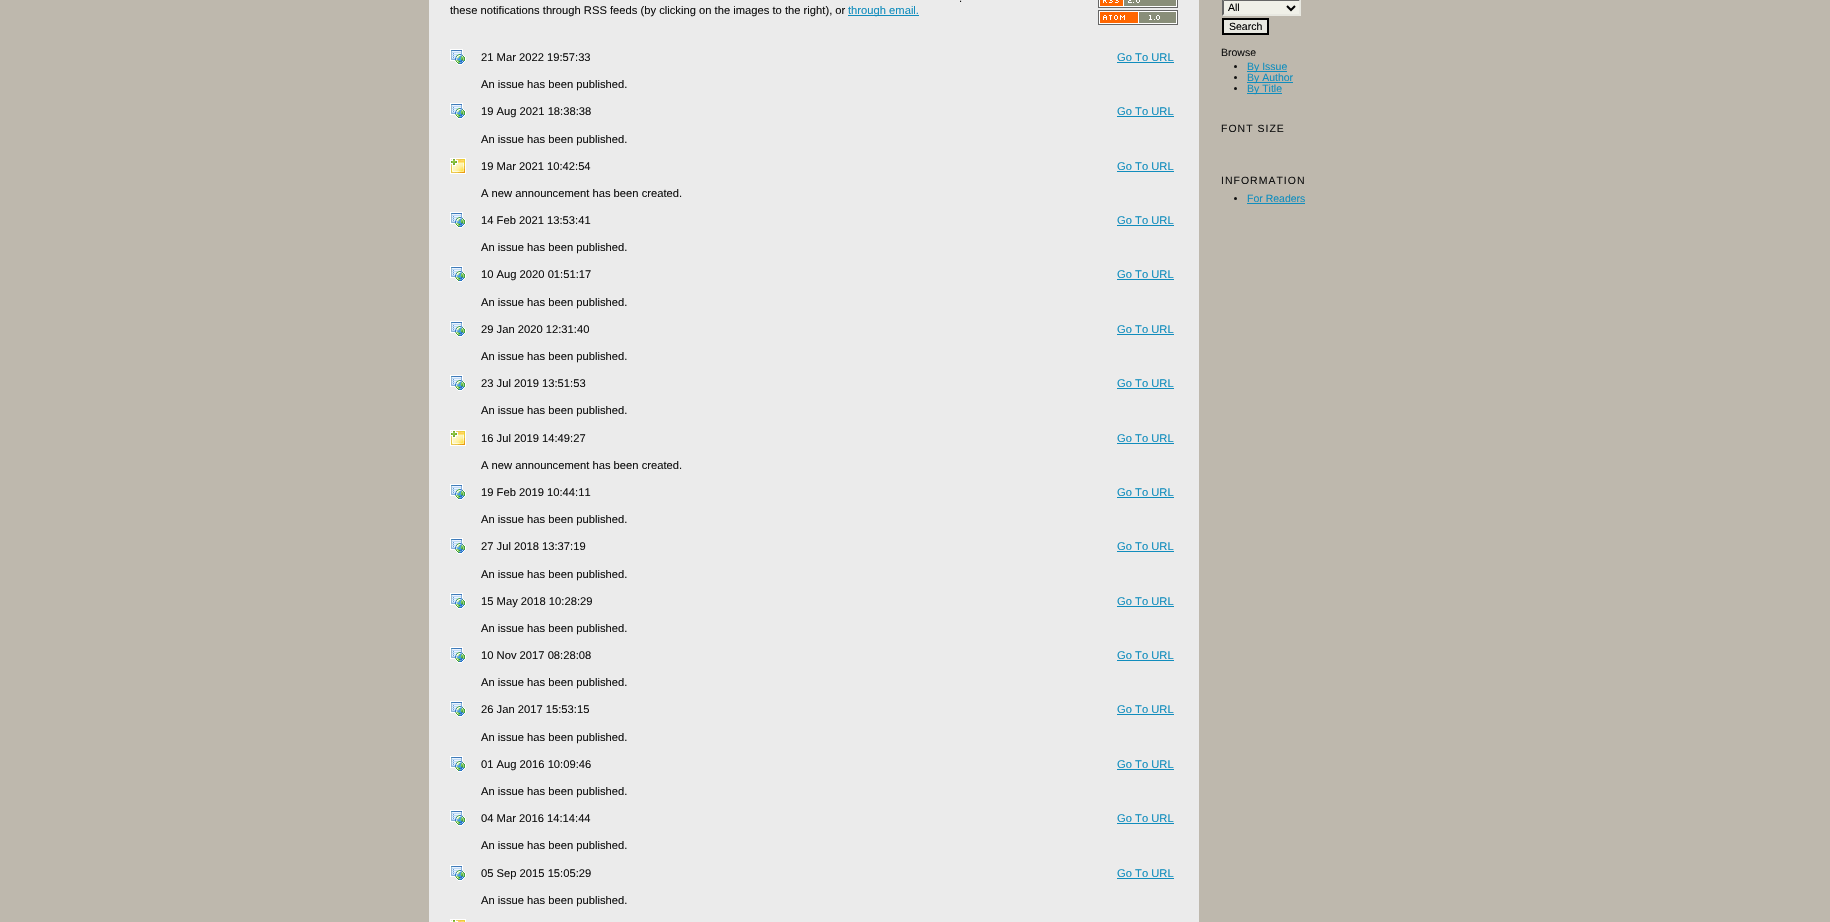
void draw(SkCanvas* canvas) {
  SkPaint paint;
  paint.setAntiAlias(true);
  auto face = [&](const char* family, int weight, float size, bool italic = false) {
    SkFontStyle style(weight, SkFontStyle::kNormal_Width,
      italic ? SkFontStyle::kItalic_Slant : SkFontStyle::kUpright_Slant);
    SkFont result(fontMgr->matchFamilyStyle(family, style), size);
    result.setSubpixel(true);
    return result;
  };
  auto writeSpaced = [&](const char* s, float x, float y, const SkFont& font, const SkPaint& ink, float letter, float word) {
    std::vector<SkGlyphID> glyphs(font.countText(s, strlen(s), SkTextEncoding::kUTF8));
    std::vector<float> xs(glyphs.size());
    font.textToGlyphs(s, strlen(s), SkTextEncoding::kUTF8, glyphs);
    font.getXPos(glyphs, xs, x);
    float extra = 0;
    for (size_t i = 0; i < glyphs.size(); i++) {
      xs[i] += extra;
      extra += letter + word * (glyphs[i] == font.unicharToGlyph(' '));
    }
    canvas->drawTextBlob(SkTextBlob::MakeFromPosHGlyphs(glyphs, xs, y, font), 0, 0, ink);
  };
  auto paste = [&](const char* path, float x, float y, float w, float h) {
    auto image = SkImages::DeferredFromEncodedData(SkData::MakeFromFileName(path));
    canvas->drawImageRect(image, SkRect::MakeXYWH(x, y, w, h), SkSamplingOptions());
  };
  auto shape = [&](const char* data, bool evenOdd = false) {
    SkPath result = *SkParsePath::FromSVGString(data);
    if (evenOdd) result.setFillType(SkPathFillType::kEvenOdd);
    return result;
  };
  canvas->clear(0xffbeb8ad);
  paint.setColor(0xffebebeb);
  canvas->drawRect(SkRect::MakeXYWH(429, 0, 770, 922), paint);
  paint.setColor(0xff118dbd);
  canvas->drawRect(SkRect::MakeXYWH(848, 15, 71, 1), paint);
  paste("img/1.png", 1098, 0, 80, 8);
  paste("img/2.png", 1098, 10, 80, 15);
  paste("img/3.png", 450, 49, 16, 16);
  canvas->drawRect(SkRect::MakeXYWH(1117, 62, 57, 1), paint);
  paste("img/3.png", 450, 103, 16, 16);
  canvas->drawRect(SkRect::MakeXYWH(1117, 116, 57, 1), paint);
  paste("img/4.png", 450, 158, 16, 16);
  canvas->drawRect(SkRect::MakeXYWH(1117, 171, 57, 1), paint);
  paste("img/3.png", 450, 212, 16, 16);
  canvas->drawRect(SkRect::MakeXYWH(1117, 225, 57, 1), paint);
  paste("img/3.png", 450, 266, 16, 16);
  canvas->drawRect(SkRect::MakeXYWH(1117, 279, 57, 1), paint);
  paste("img/3.png", 450, 321, 16, 16);
  canvas->drawRect(SkRect::MakeXYWH(1117, 334, 57, 1), paint);
  paste("img/3.png", 450, 375, 16, 16);
  canvas->drawRect(SkRect::MakeXYWH(1117, 388, 57, 1), paint);
  paste("img/4.png", 450, 430, 16, 16);
  canvas->drawRect(SkRect::MakeXYWH(1117, 443, 57, 1), paint);
  paste("img/3.png", 450, 484, 16, 16);
  canvas->drawRect(SkRect::MakeXYWH(1117, 497, 57, 1), paint);
  paste("img/3.png", 450, 538, 16, 16);
  canvas->drawRect(SkRect::MakeXYWH(1117, 551, 57, 1), paint);
  paste("img/3.png", 450, 593, 16, 16);
  canvas->drawRect(SkRect::MakeXYWH(1117, 606, 57, 1), paint);
  paste("img/3.png", 450, 647, 16, 16);
  canvas->drawRect(SkRect::MakeXYWH(1117, 660, 57, 1), paint);
  paste("img/3.png", 450, 701, 16, 16);
  canvas->drawRect(SkRect::MakeXYWH(1117, 714, 57, 1), paint);
  paste("img/3.png", 450, 756, 16, 16);
  canvas->drawRect(SkRect::MakeXYWH(1117, 769, 57, 1), paint);
  paste("img/3.png", 450, 810, 16, 16);
  canvas->drawRect(SkRect::MakeXYWH(1117, 823, 57, 1), paint);
  paste("img/3.png", 450, 865, 16, 16);
  canvas->drawRect(SkRect::MakeXYWH(1117, 878, 57, 1), paint);
  paste("img/5.png", 450, 919, 16, 3);
  paint.setColor(0xfff0f0e8);
  canvas->drawRect(SkRect::MakeXYWH(1222, 0, 79, 16), paint);
  paint.setColor(0xff666666);
  canvas->drawPath(shape("M1222-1H1301L1299 1H1224Z"), paint);
  paint.setColor(0xffe8e8e1);
  canvas->drawPath(shape("M1301-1V16L1299 14V1Z"), paint);
  canvas->drawPath(shape("M1301 16H1222L1224 14H1299Z"), paint);
  paint.setColor(0xff666666);
  canvas->drawPath(shape("M1222 16V-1L1224 1V14Z"), paint);
  paint.setStroke(true);
  paint.setStrokeWidth(2);
  paint.setColor(0xff000000);
  canvas->drawPath(shape("M1287 6L1291 10L1295 6"), paint);
  paint.setStroke(false);
  paint.setColor(0xffe8e8e1);
  canvas->drawRect(SkRect::MakeXYWH(1223, 19, 45, 15), paint);
  paint.setStroke(true);
  paint.setColor(0xff000000);
  canvas->drawRect(SkRect::MakeXYWH(1223, 19, 45, 15), paint);
  paint.setStroke(false);
  paint.setColor(0xff111111);
  canvas->drawCircle(1235.5f, 66.5f, 1.5f, paint);
  paint.setColor(0xff118dbd);
  canvas->drawRect(SkRect::MakeXYWH(1247, 71, 40, 1), paint);
  paint.setColor(0xff111111);
  canvas->drawCircle(1235.5f, 77.5f, 1.5f, paint);
  paint.setColor(0xff118dbd);
  canvas->drawRect(SkRect::MakeXYWH(1247, 82, 46, 1), paint);
  paint.setColor(0xff111111);
  canvas->drawCircle(1235.5f, 88.5f, 1.5f, paint);
  paint.setColor(0xff118dbd);
  canvas->drawRect(SkRect::MakeXYWH(1247, 93, 35, 1), paint);
  paint.setColor(0xff111111);
  canvas->drawCircle(1235.5f, 198.5f, 1.5f, paint);
  paint.setColor(0xff118dbd);
  canvas->drawRect(SkRect::MakeXYWH(1247, 203, 58, 1), paint);
  auto f0 = face("Liberation Sans", 400, 11.2f);
  paint.setColor(0xff111111);
  canvas->drawString(".", 959, 2, f0, paint);
  canvas->drawString("these notifications through RSS feeds (by clicking on the images to the right), or", 450, 14, f0, paint);
  paint.setColor(0xff118dbd);
  canvas->drawString("through email.", 848, 14, f0, paint);
  paint.setColor(0xff111111);
  canvas->drawString("21 Mar 2022 19:57:33", 481, 61, f0, paint);
  paint.setColor(0xff118dbd);
  canvas->drawString("Go To URL", 1117, 61, f0, paint);
  paint.setColor(0xff111111);
  canvas->drawString("An issue has been published.", 481, 88, f0, paint);
  canvas->drawString("19 Aug 2021 18:38:38", 481, 115, f0, paint);
  paint.setColor(0xff118dbd);
  canvas->drawString("Go To URL", 1117, 115, f0, paint);
  paint.setColor(0xff111111);
  canvas->drawString("An issue has been published.", 481, 143, f0, paint);
  canvas->drawString("19 Mar 2021 10:42:54", 481, 170, f0, paint);
  paint.setColor(0xff118dbd);
  canvas->drawString("Go To URL", 1117, 170, f0, paint);
  paint.setColor(0xff111111);
  canvas->drawString("A new announcement has been created.", 481, 197, f0, paint);
  canvas->drawString("14 Feb 2021 13:53:41", 481, 224, f0, paint);
  paint.setColor(0xff118dbd);
  canvas->drawString("Go To URL", 1117, 224, f0, paint);
  paint.setColor(0xff111111);
  canvas->drawString("An issue has been published.", 481, 251, f0, paint);
  canvas->drawString("10 Aug 2020 01:51:17", 481, 278, f0, paint);
  paint.setColor(0xff118dbd);
  canvas->drawString("Go To URL", 1117, 278, f0, paint);
  paint.setColor(0xff111111);
  canvas->drawString("An issue has been published.", 481, 306, f0, paint);
  canvas->drawString("29 Jan 2020 12:31:40", 481, 333, f0, paint);
  paint.setColor(0xff118dbd);
  canvas->drawString("Go To URL", 1117, 333, f0, paint);
  paint.setColor(0xff111111);
  canvas->drawString("An issue has been published.", 481, 360, f0, paint);
  canvas->drawString("23 Jul 2019 13:51:53", 481, 387, f0, paint);
  paint.setColor(0xff118dbd);
  canvas->drawString("Go To URL", 1117, 387, f0, paint);
  paint.setColor(0xff111111);
  canvas->drawString("An issue has been published.", 481, 414, f0, paint);
  canvas->drawString("16 Jul 2019 14:49:27", 481, 442, f0, paint);
  paint.setColor(0xff118dbd);
  canvas->drawString("Go To URL", 1117, 442, f0, paint);
  paint.setColor(0xff111111);
  canvas->drawString("A new announcement has been created.", 481, 469, f0, paint);
  canvas->drawString("19 Feb 2019 10:44:11", 481, 496, f0, paint);
  paint.setColor(0xff118dbd);
  canvas->drawString("Go To URL", 1117, 496, f0, paint);
  paint.setColor(0xff111111);
  canvas->drawString("An issue has been published.", 481, 523, f0, paint);
  canvas->drawString("27 Jul 2018 13:37:19", 481, 550, f0, paint);
  paint.setColor(0xff118dbd);
  canvas->drawString("Go To URL", 1117, 550, f0, paint);
  paint.setColor(0xff111111);
  canvas->drawString("An issue has been published.", 481, 578, f0, paint);
  canvas->drawString("15 May 2018 10:28:29", 481, 605, f0, paint);
  paint.setColor(0xff118dbd);
  canvas->drawString("Go To URL", 1117, 605, f0, paint);
  paint.setColor(0xff111111);
  canvas->drawString("An issue has been published.", 481, 632, f0, paint);
  canvas->drawString("10 Nov 2017 08:28:08", 481, 659, f0, paint);
  paint.setColor(0xff118dbd);
  canvas->drawString("Go To URL", 1117, 659, f0, paint);
  paint.setColor(0xff111111);
  canvas->drawString("An issue has been published.", 481, 686, f0, paint);
  canvas->drawString("26 Jan 2017 15:53:15", 481, 713, f0, paint);
  paint.setColor(0xff118dbd);
  canvas->drawString("Go To URL", 1117, 713, f0, paint);
  paint.setColor(0xff111111);
  canvas->drawString("An issue has been published.", 481, 741, f0, paint);
  canvas->drawString("01 Aug 2016 10:09:46", 481, 768, f0, paint);
  paint.setColor(0xff118dbd);
  canvas->drawString("Go To URL", 1117, 768, f0, paint);
  paint.setColor(0xff111111);
  canvas->drawString("An issue has been published.", 481, 795, f0, paint);
  canvas->drawString("04 Mar 2016 14:14:44", 481, 822, f0, paint);
  paint.setColor(0xff118dbd);
  canvas->drawString("Go To URL", 1117, 822, f0, paint);
  paint.setColor(0xff111111);
  canvas->drawString("An issue has been published.", 481, 849, f0, paint);
  canvas->drawString("05 Sep 2015 15:05:29", 481, 877, f0, paint);
  paint.setColor(0xff118dbd);
  canvas->drawString("Go To URL", 1117, 877, f0, paint);
  paint.setColor(0xff111111);
  canvas->drawString("An issue has been published.", 481, 904, f0, paint);
  auto f1 = face("Liberation Sans", 400, 10.5f);
  paint.setColor(0xff000000);
  canvas->drawString("All", 1228, 11, f1, paint);
  canvas->drawString("Search", 1229, 30, f1, paint);
  paint.setColor(0xff111111);
  canvas->drawString("Browse", 1221, 56, f1, paint);
  paint.setColor(0xff118dbd);
  {
    const struct { const char* s; float x, y; } items[] = {
      {"By Issue", 1247, 70},
      {"By Author", 1247, 81},
      {"By Title", 1247, 92},
    };
    for (auto [s, x, y] : items) {
      canvas->drawString(s, x, y, f1, paint);
    }
  }
  paint.setColor(0xff111111);
  writeSpaced("FONT SIZE", 1221, 132, f1, paint, 1, 0);
  writeSpaced("INFORMATION", 1221, 184, f1, paint, 1, 0);
  paint.setColor(0xff118dbd);
  canvas->drawString("For Readers", 1247, 202, f1, paint);
}
